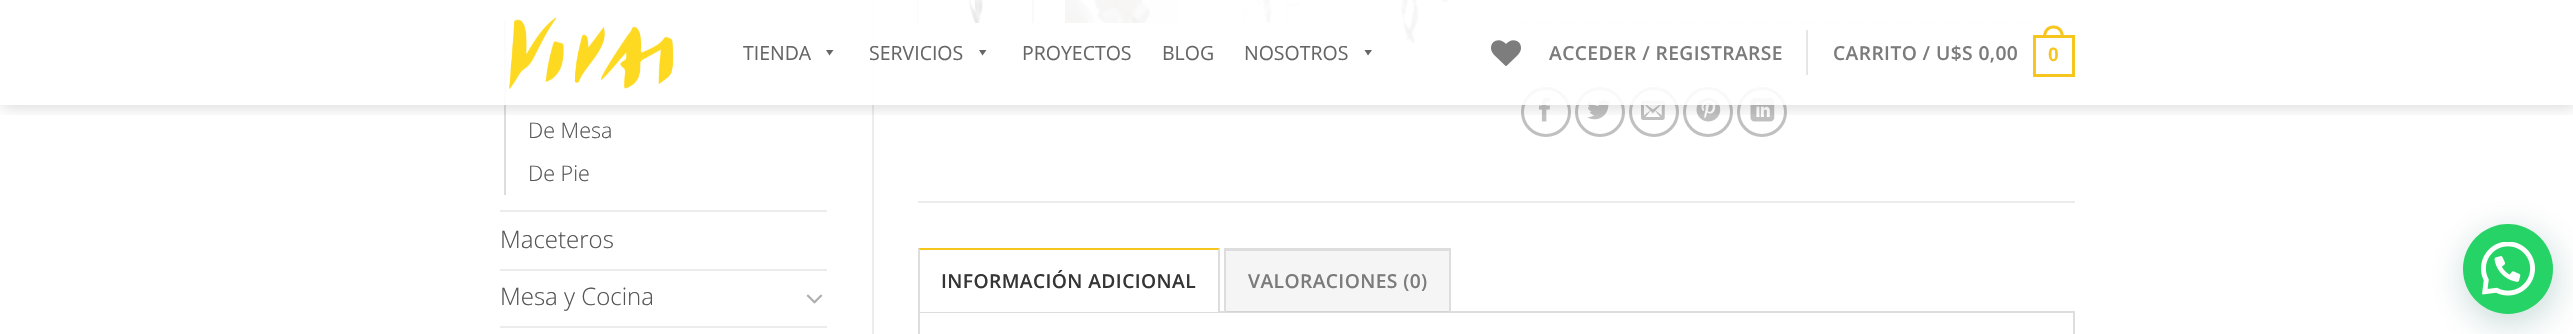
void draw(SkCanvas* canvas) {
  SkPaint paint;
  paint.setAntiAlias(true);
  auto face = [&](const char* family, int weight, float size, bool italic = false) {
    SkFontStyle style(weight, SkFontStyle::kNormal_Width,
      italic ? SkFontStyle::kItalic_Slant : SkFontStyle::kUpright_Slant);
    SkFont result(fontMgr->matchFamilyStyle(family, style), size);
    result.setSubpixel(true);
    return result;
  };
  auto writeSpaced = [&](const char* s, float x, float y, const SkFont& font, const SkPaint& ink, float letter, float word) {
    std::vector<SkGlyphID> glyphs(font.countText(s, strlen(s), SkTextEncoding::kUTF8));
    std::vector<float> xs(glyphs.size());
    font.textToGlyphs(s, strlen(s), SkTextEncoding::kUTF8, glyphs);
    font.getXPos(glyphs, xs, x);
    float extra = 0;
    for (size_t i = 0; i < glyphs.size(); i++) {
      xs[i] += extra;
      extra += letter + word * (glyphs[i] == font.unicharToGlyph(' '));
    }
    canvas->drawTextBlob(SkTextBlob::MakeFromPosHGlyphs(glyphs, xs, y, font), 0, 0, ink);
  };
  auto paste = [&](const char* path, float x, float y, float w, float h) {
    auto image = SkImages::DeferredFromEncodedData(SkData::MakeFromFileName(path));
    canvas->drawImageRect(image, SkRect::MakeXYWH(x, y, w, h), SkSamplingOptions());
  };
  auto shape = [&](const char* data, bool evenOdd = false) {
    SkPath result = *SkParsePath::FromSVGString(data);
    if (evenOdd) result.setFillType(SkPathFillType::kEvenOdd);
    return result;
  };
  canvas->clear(0xffffffff);
  paint.setColor(0xffdddddd);
  canvas->drawRect(SkRect::MakeXYWH(504, 21, 2, 174), paint);
  paint.setColor(0xffececec);
  canvas->drawRect(SkRect::MakeXYWH(872, 0, 2, 334), paint);
  paint.setStroke(true);
  paint.setStrokeWidth(2);
  paint.setColor(0xffcccccc);
  canvas->drawRect(SkRect::MakeXYWH(918, -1, 115, 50), paint);
  paste("img/4.png", 918, 0, 65, 23);
  paste("img/5.png", 1065, 0, 114, 23);
  paste("img/6.png", 1241, 0, 59, 23);
  paste("img/7.png", 1400, 0, 49, 44);
  paint.setStrokeWidth(1.5f);
  paint.setColor(0xffdddddd);
  paint.setPathEffect(SkDashPathEffect::Make({{1.5f, 1.5f}}, 0));
  canvas->drawPath(shape("M1518 22H2074.5"), paint);
  paint.setPathEffect(nullptr);
  paint.setStrokeWidth(3);
  paint.setColor(0xffc0c0c0);
  canvas->drawCircle(1546, 112, 23.5f, paint);
  paste("img/8.png", 1539, 97, 11, 25);
  canvas->drawCircle(1600, 112, 23.5f, paint);
  paste("img/9.png", 1587, 100, 24, 20);
  canvas->drawCircle(1654, 112, 23.5f, paint);
  paste("img/10.png", 1641, 100, 24, 20);
  canvas->drawCircle(1708, 112, 23.5f, paint);
  paste("img/11.png", 1696, 97, 25, 25);
  canvas->drawCircle(1762, 112, 23.5f, paint);
  paste("img/12.png", 1750, 97, 25, 25);
  canvas->save();
  canvas->clipRect(SkRect::MakeXYWH(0, 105, 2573, 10));
  paint.setStroke(false);
  paint.setColor(0x26000000);
  paint.setMaskFilter(SkMaskFilter::MakeBlur(kNormal_SkBlurStyle, 7.5f));
  canvas->drawRect(SkRect::MakeXYWH(2, 2, 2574, 105), paint);
  paint.setMaskFilter(nullptr);
  canvas->restore();
  paint.setColor(0xe6ffffff);
  canvas->drawRect(SkRect::MakeXYWH(504, 0, 1571, 105), paint);
  paste("img/1.png", 509, 17, 165, 72);
  paint.setColor(0xffffffff);
  canvas->drawRect(SkRect::MakeXYWH(917, 23, 117, 27), paint);
  paint.setColor(0xff666666);
  canvas->drawPath(shape("M833.5 50L829.5 55.5L826 50Z"), paint);
  canvas->drawPath(shape("M986.5 50L982.5 55.5L979 50Z"), paint);
  canvas->drawPath(shape("M1372 50L1368 55.5L1364.5 50Z"), paint);
  paste("img/2.png", 1491, 40, 30, 26);
  paint.setColor(0xffe6e6e6);
  canvas->drawRect(SkRect::MakeXYWH(1806, 30, 2, 45), paint);
  paint.setStroke(true);
  paint.setColor(0xfff7c61e);
  canvas->drawRect(SkRect::MakeXYWH(2034.5f, 36.5f, 39, 39), paint);
  paint.setStroke(false);
  canvas->drawPath(shape("M2053.5 25.5C2060.5 25.5 2064 31 2064 37.5H2043C2043 31 2046.5 25.5 2053.5 25.5ZM2053.5 28.5C2059 28.5 2061 33 2061 37.5H2046C2046 33 2048 28.5 2053.5 28.5Z", true), paint);
  paint.setColor(0xffececec);
  canvas->drawRect(SkRect::MakeXYWH(500, 210, 327, 2), paint);
  canvas->drawRect(SkRect::MakeXYWH(500, 269, 327, 2), paint);
  paste("img/3.png", 806, 294, 17, 10);
  canvas->drawRect(SkRect::MakeXYWH(500, 326, 327, 2), paint);
  canvas->drawRect(SkRect::MakeXYWH(918, 201, 1157, 2), paint);
  paint.setStroke(true);
  paint.setStrokeWidth(2);
  paint.setColor(0xffdddddd);
  canvas->drawRect(SkRect::MakeXYWH(919, 312, 1155, 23), paint);
  paint.setStroke(false);
  paint.setColor(0xffffffff);
  canvas->drawRect(SkRect::MakeXYWH(918, 311, 302, 1), paint);
  paint.setColor(0xfff7c61e);
  canvas->drawPath(shape("M918 248H1220L1218 250H920Z"), paint);
  paint.setColor(0xffdddddd);
  canvas->drawPath(shape("M1220 248V312H1218V250Z"), paint);
  canvas->drawPath(shape("M918 312V248L920 250V312Z"), paint);
  {
    const struct { float x, y, w, h; SkColor color; } items[] = {
      {1226, 251, 223, 61, 0x0a000000},
      {1224, 248, 227, 3, 0xffdddddd},
      {1449, 248, 2, 64, 0xffdddddd},
      {1224, 248, 2, 64, 0xffdddddd},
    };
    for (auto [x, y, w, h, color] : items) {
      paint.setColor(color);
      canvas->drawRect(SkRect::MakeXYWH(x, y, w, h), paint);
    }
  }
  paint.setColor(0x3d075e54);
  paint.setMaskFilter(SkMaskFilter::MakeBlur(kNormal_SkBlurStyle, 18));
  canvas->drawRoundRect(SkRect::MakeXYWH(2465, 233, 90, 90), 45, 45, paint);
  paint.setMaskFilter(nullptr);
  paint.setColor(0xff25d366);
  canvas->drawCircle(2508, 269, 45, paint);
  paste("img/13.png", 2481, 242, 54, 54);
  auto f0 = face("Open Sans", 400, 19.5f);
  paint.setColor(0xff666666);
  {
    const struct { const char* s; float x, y; } items[] = {
      {"TIENDA", 743, 60},
      {"SERVICIOS", 869, 60},
      {"PROYECTOS", 1022, 60},
      {"BLOG", 1162, 60},
      {"NOSOTROS", 1244, 60},
    };
    for (auto [s, x, y] : items) {
      canvas->drawString(s, x, y, f0, paint);
    }
  }
  auto f1 = face("Open Sans", 600, 19.25f);
  paint.setColor(0xff7b7b7b);
  writeSpaced("ACCEDER / REGISTRARSE", 1549, 60, f1, paint, 0.4f, 0);
  writeSpaced("CARRITO / U$S 0,00", 1833, 60, f1, paint, 0.4f, 0);
  auto f2 = face("Liberation Sans", 700, 19.25f);
  paint.setColor(0xfff7c61e);
  writeSpaced("0", 2048, 61, f2, paint, 0.4f, 0);
  auto f3 = face("Open Sans", 300, 21.5f);
  paint.setColor(0xff555555);
  canvas->drawString("De Mesa", 528, 138, f3, paint);
  canvas->drawString("De Pie", 528, 181, f3, paint);
  auto f4 = face("Open Sans", 300, 24);
  canvas->drawString("Maceteros", 500, 248, f4, paint);
  canvas->drawString("Mesa y Cocina", 500, 305, f4, paint);
  paint.setColor(0xff353535);
  writeSpaced("INFORMACIÓN ADICIONAL", 941, 288, f1, paint, 0.4f, 0);
  paint.setColor(0xff7b7b7b);
  writeSpaced("VALORACIONES (0)", 1248, 288, f1, paint, 0.4f, 0);
}
